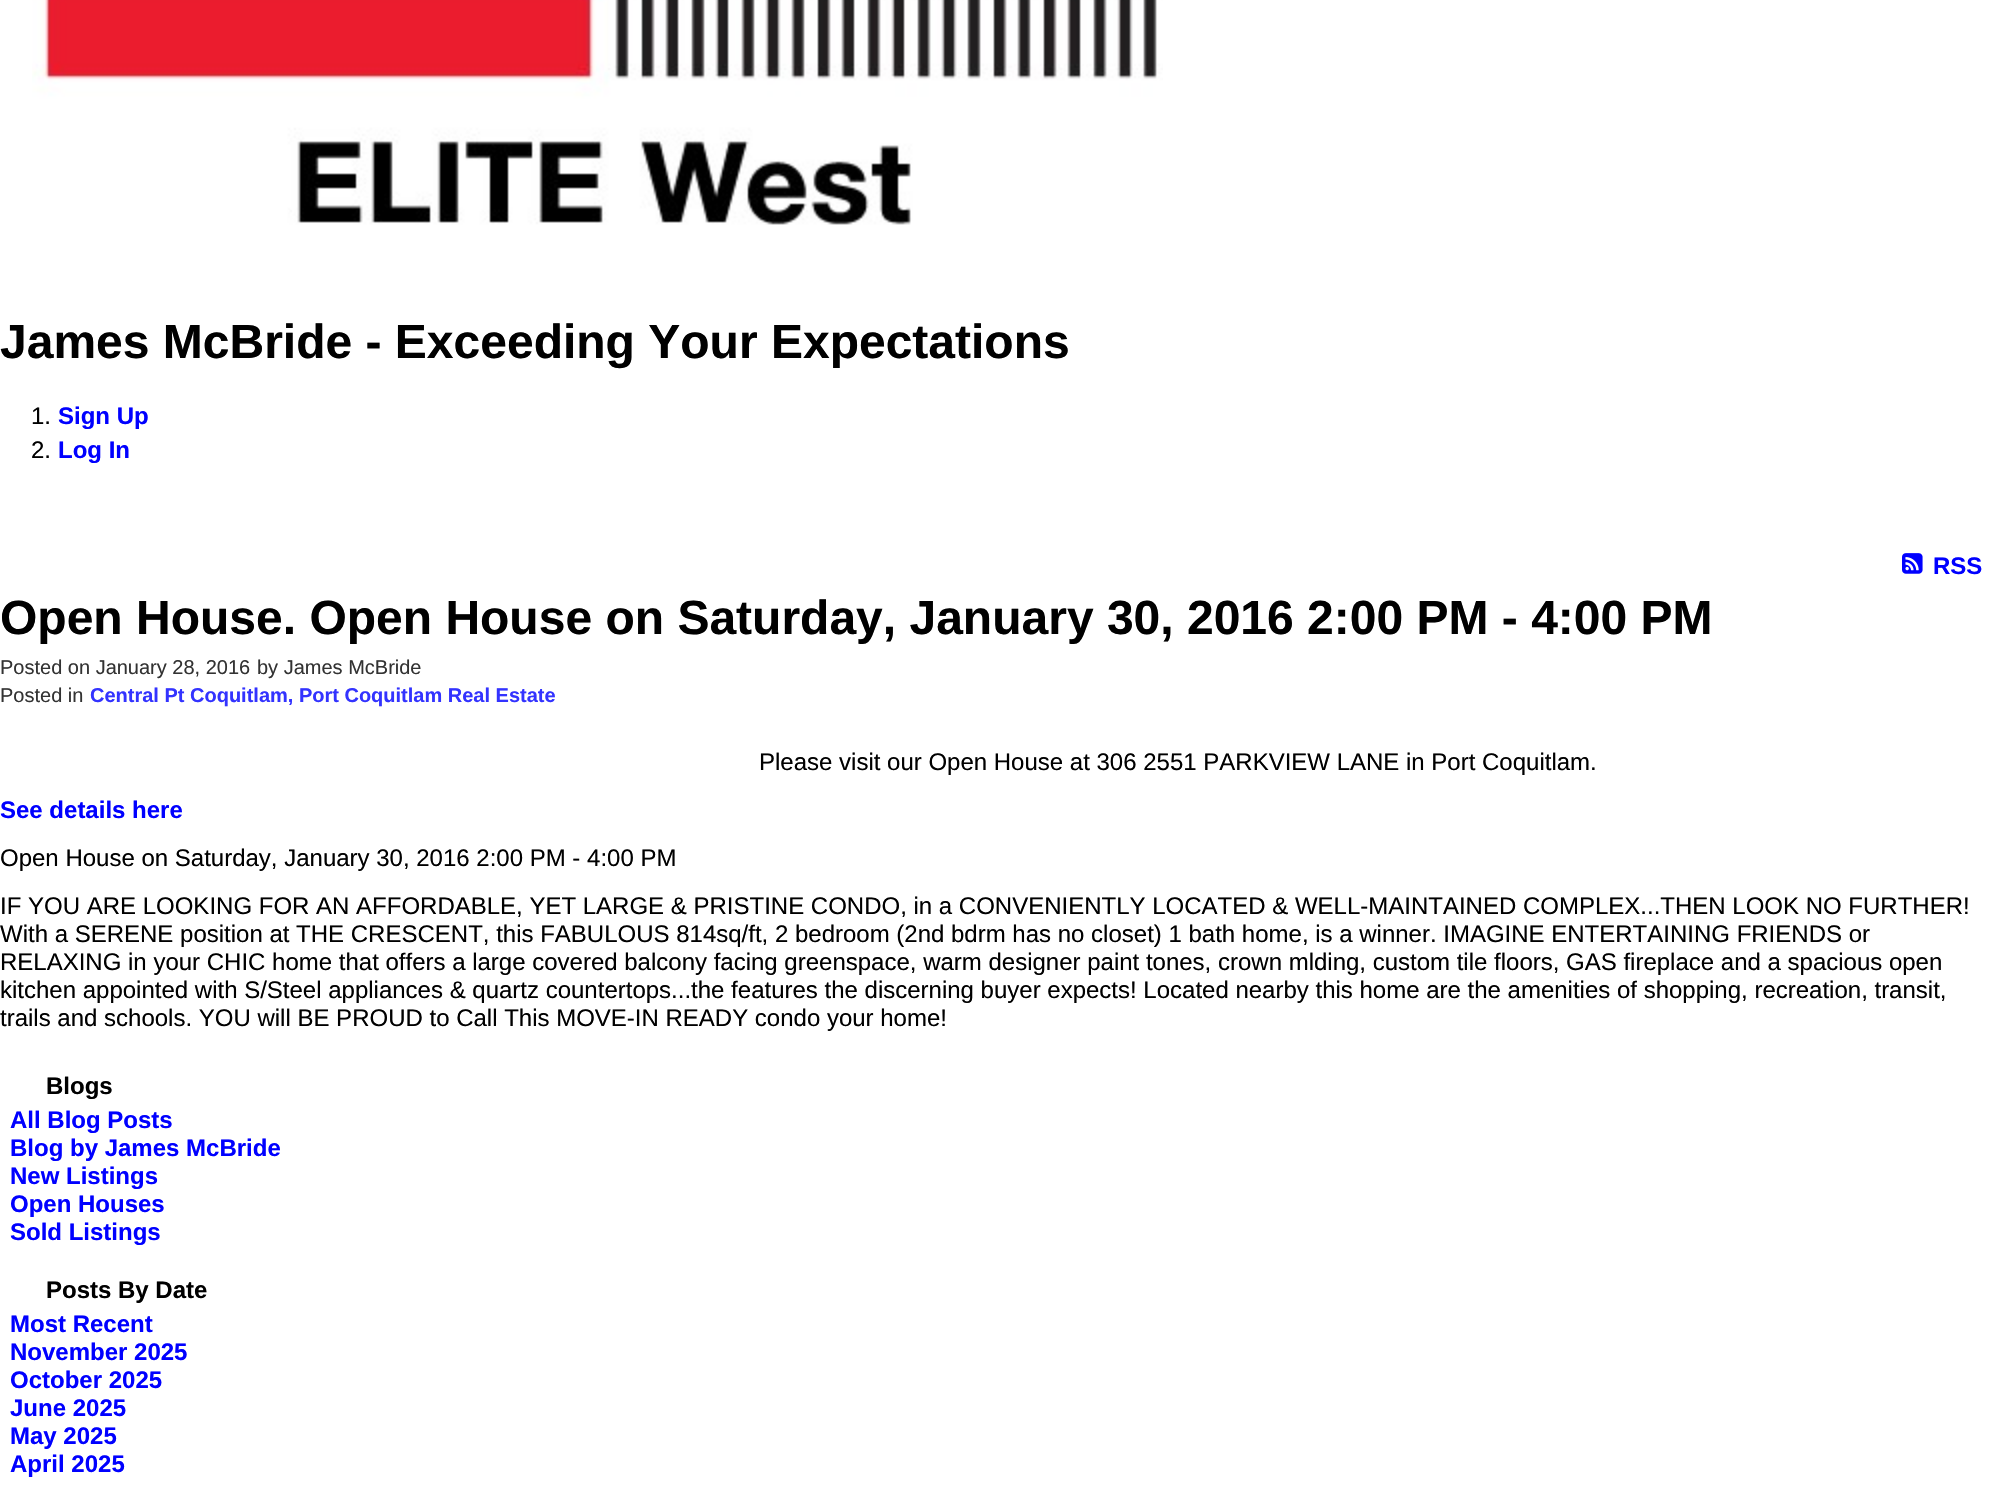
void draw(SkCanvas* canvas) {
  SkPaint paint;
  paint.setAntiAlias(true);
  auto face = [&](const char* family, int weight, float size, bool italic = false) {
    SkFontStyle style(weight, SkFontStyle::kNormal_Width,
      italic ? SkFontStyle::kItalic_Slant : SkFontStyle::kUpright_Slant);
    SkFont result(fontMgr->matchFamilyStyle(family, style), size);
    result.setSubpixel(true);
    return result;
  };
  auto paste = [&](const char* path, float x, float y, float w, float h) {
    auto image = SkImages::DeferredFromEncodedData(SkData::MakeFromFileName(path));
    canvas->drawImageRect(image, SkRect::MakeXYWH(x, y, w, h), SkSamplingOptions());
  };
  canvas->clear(0xffffffff);
  paste("img/1.png", 32, 0, 1131, 225);
  paste("img/2.png", 1902, 553, 21, 21);
  auto f0 = face("Liberation Sans", 700, 48);
  paint.setColor(0xff000000);
  canvas->drawString("James McBride - Exceeding Your Expectations", 0, 358, f0, paint);
  auto f1 = face("Liberation Sans", 400, 24);
  canvas->drawString("1.", 31, 424, f1, paint);
  auto f2 = face("Liberation Sans", 700, 24);
  paint.setColor(0xff0000ff);
  canvas->drawString("Sign Up", 58, 424, f2, paint);
  paint.setColor(0xff000000);
  canvas->drawString("2.", 31, 458, f1, paint);
  paint.setColor(0xff0000ff);
  canvas->drawString("Log In", 58, 458, f2, paint);
  canvas->drawString("RSS", 1933, 574, f2, paint);
  paint.setColor(0xff000000);
  canvas->drawString("Open House. Open House on Saturday, January 30, 2016 2:00 PM - 4:00 PM", 0, 634, f0, paint);
  auto f3 = face("Liberation Sans", 400, 20);
  paint.setColor(0xff333333);
  {
    const struct { const char* s; float x, y; } items[] = {
      {"Posted on January 28, 2016", 0, 674},
      {"by James McBride", 257, 674},
      {"Posted in", 0, 702},
    };
    for (auto [s, x, y] : items) {
      canvas->drawString(s, x, y, f3, paint);
    }
  }
  auto f4 = face("Liberation Sans", 700, 20);
  paint.setColor(0xff3333ff);
  canvas->drawString("Central Pt Coquitlam, Port Coquitlam Real Estate", 90, 702, f4, paint);
  paint.setColor(0xff000000);
  canvas->drawString("Please visit our Open House at 306 2551 PARKVIEW LANE in Port Coquitlam.", 759, 770, f1, paint);
  paint.setColor(0xff0000ff);
  canvas->drawString("See details here", 0, 818, f2, paint);
  paint.setColor(0xff000000);
  {
    const struct { const char* s; float x, y; } items[] = {
      {"Open House on Saturday, January 30, 2016 2:00 PM - 4:00 PM", 0, 866},
      {"IF YOU ARE LOOKING FOR AN AFFORDABLE, YET LARGE & PRISTINE CONDO, in a CONVENIENTLY LOCATED & WELL-MAINTAINED COMPLEX...THEN LOOK NO FURTHER!", 0, 914},
      {"With a SERENE position at THE CRESCENT, this FABULOUS 814sq/ft, 2 bedroom (2nd bdrm has no closet) 1 bath home, is a winner. IMAGINE ENTERTAINING FRIENDS or", 0, 942},
      {"RELAXING in your CHIC home that offers a large covered balcony facing greenspace, warm designer paint tones, crown mlding, custom tile floors, GAS fireplace and a spacious open", 0, 970},
      {"kitchen appointed with S/Steel appliances & quartz countertops...the features the discerning buyer expects! Located nearby this home are the amenities of shopping, recreation, transit,", 0, 998},
      {"trails and schools. YOU will BE PROUD to Call This MOVE-IN READY condo your home!", 0, 1026},
    };
    for (auto [s, x, y] : items) {
      canvas->drawString(s, x, y, f1, paint);
    }
  }
  canvas->drawString("Blogs", 46, 1094, f2, paint);
  paint.setColor(0xff0000ff);
  {
    const struct { const char* s; float x, y; } items[] = {
      {"All Blog Posts", 10, 1128},
      {"Blog by James McBride", 10, 1156},
      {"New Listings", 10, 1184},
      {"Open Houses", 10, 1212},
      {"Sold Listings", 10, 1240},
    };
    for (auto [s, x, y] : items) {
      canvas->drawString(s, x, y, f2, paint);
    }
  }
  paint.setColor(0xff000000);
  canvas->drawString("Posts By Date", 46, 1298, f2, paint);
  paint.setColor(0xff0000ff);
  {
    const struct { const char* s; float x, y; } items[] = {
      {"Most Recent", 10, 1332},
      {"November 2025", 10, 1360},
      {"October 2025", 10, 1388},
      {"June 2025", 10, 1416},
      {"May 2025", 10, 1444},
      {"April 2025", 10, 1472},
    };
    for (auto [s, x, y] : items) {
      canvas->drawString(s, x, y, f2, paint);
    }
  }
}
